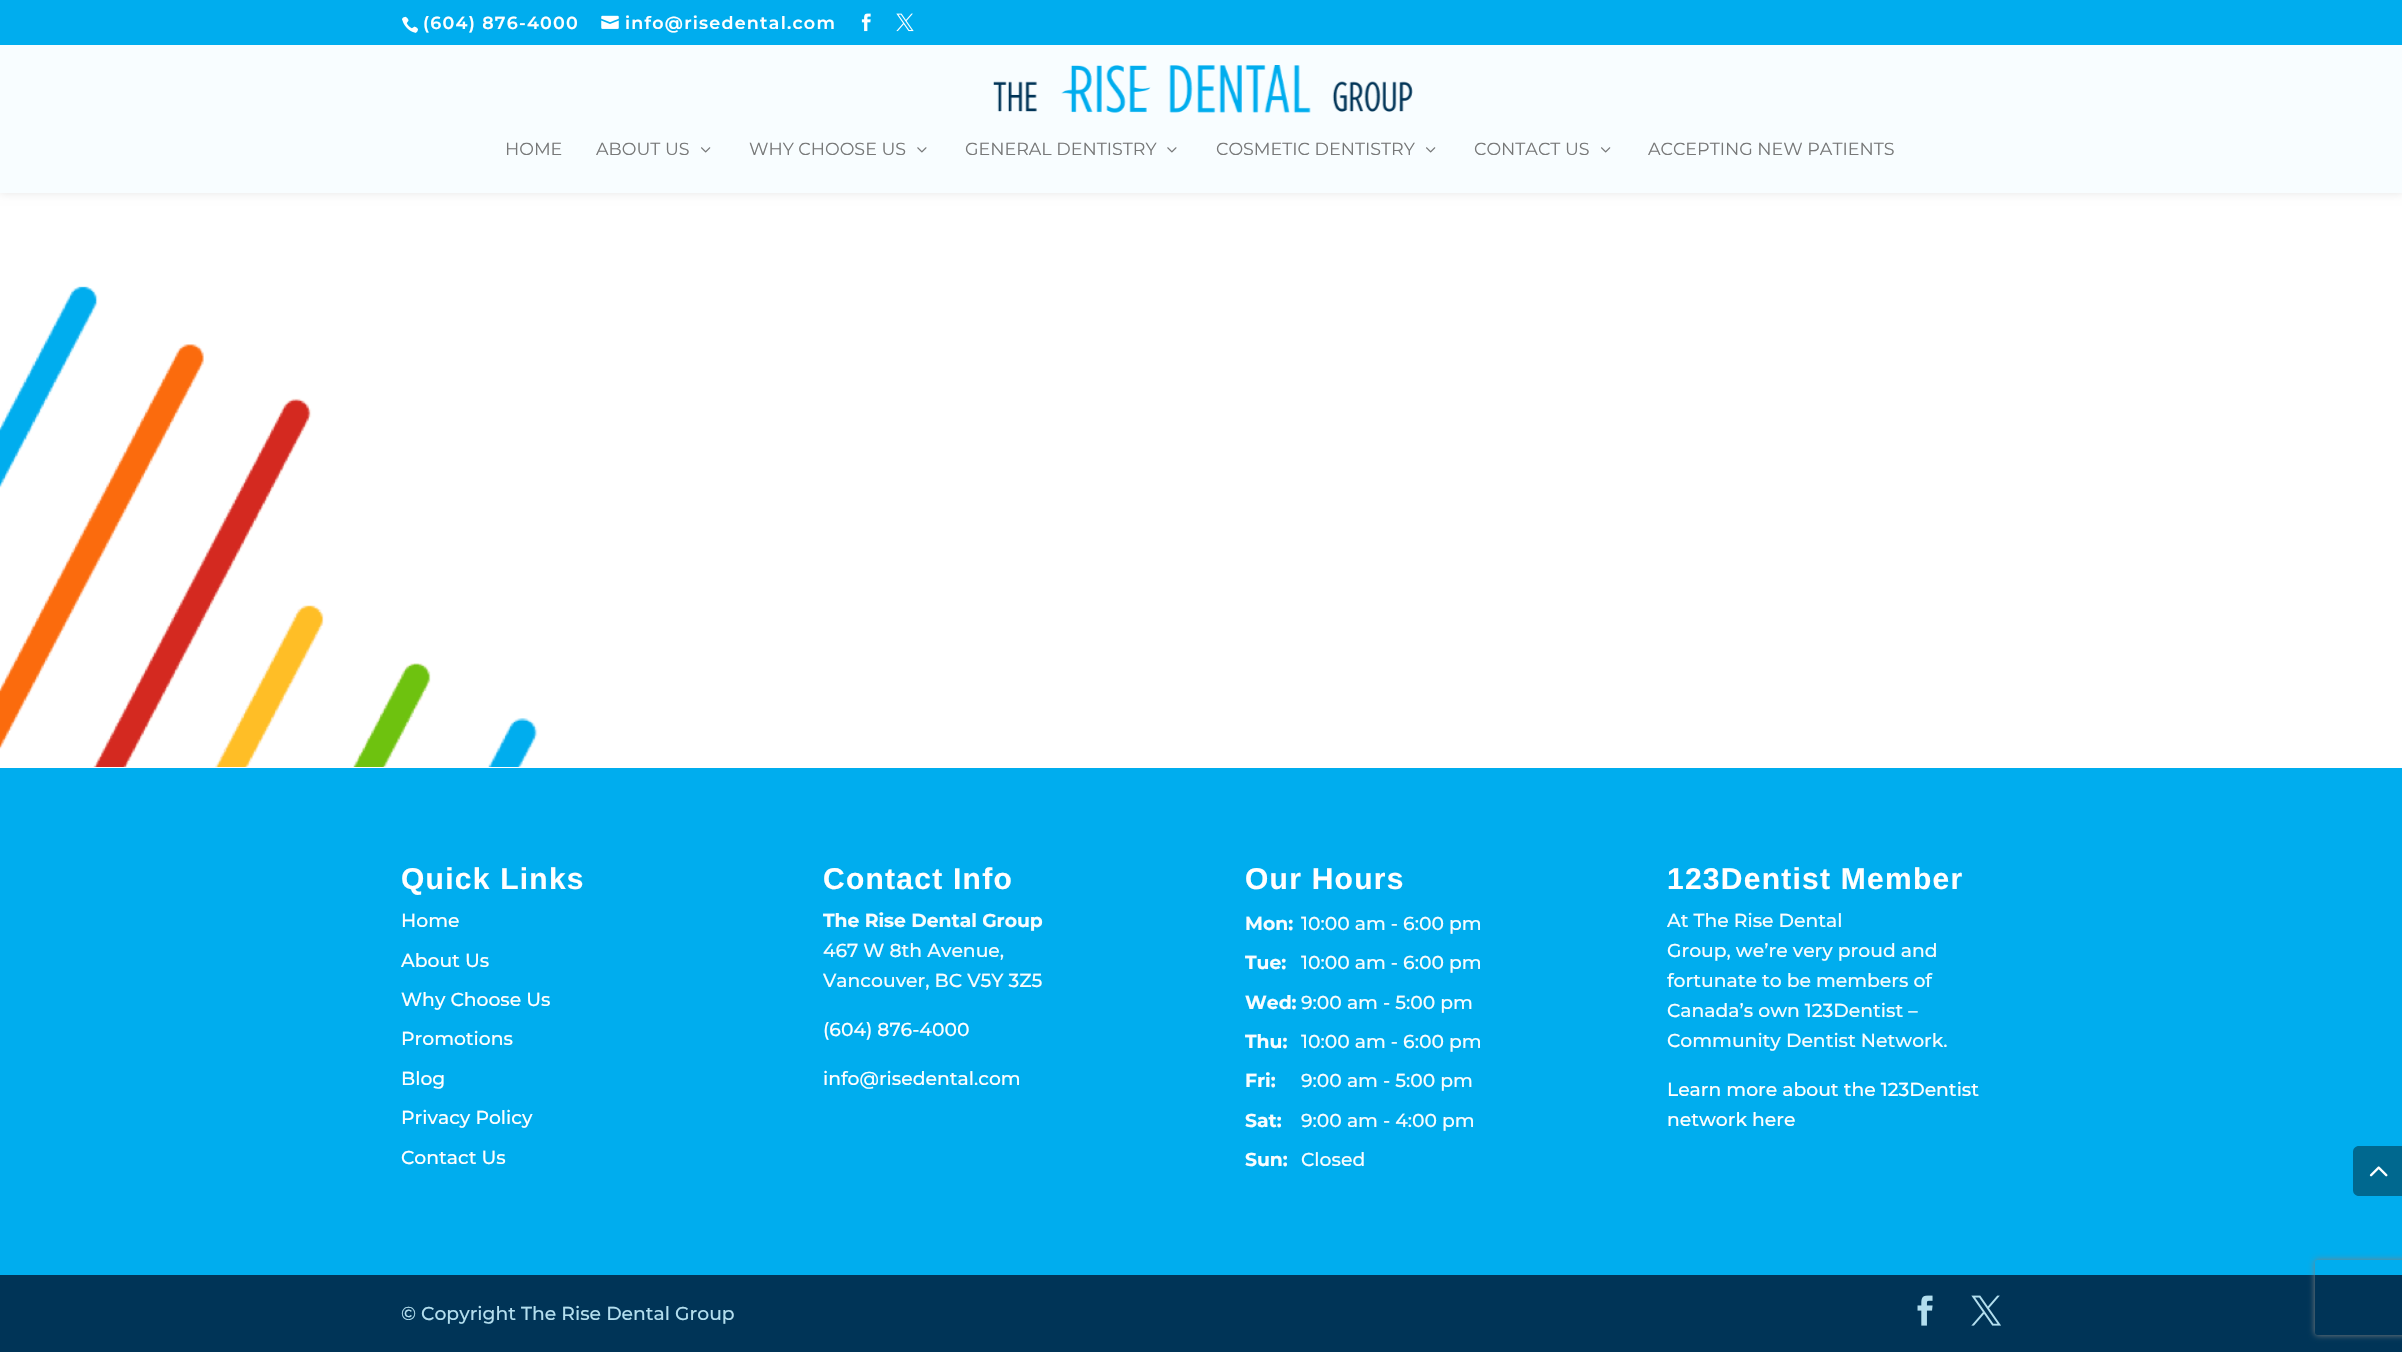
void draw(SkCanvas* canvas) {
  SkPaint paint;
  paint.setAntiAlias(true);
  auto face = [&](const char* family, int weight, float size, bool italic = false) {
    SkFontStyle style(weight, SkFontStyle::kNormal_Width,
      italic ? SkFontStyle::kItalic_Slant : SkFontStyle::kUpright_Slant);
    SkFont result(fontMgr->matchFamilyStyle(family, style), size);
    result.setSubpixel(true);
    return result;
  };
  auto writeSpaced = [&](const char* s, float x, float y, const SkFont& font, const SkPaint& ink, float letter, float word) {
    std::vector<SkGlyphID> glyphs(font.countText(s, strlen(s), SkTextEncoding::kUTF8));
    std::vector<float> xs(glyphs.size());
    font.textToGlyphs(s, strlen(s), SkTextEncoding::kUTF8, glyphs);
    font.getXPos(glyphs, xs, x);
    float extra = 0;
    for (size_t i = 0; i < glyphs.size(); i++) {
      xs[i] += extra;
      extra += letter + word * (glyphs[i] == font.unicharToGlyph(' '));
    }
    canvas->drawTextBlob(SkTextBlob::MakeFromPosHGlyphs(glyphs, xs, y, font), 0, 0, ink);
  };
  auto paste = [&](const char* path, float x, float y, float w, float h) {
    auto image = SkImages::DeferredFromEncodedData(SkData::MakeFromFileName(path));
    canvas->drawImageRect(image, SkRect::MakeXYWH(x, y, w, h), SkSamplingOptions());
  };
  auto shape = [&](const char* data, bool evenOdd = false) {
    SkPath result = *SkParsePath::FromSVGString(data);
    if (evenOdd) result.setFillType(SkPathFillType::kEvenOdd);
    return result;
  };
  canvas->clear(0xffffffff);
  paint.setColor(0x1a000000);
  paint.setMaskFilter(SkMaskFilter::MakeBlur(kNormal_SkBlurStyle, 4.5f));
  canvas->drawRect(SkRect::MakeXYWH(0, 45, 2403, 148), paint);
  paint.setMaskFilter(nullptr);
  paint.setColor(0xff00adee);
  canvas->drawRect(SkRect::MakeXYWH(0, 0, 2402, 45), paint);
  paste("img/1.png", 402, 16, 16, 17);
  paste("img/2.png", 601, 15, 18, 14);
  paste("img/3.png", 861, 13, 10, 19);
  paste("img/4.png", 896, 13, 18, 19);
  paint.setColor(0xfff8fdff);
  canvas->drawRect(SkRect::MakeXYWH(0, 45, 2402, 148), paint);
  paste("img/5.png", 993, 65, 420, 48);
  paste("img/6.png", 701, 147, 10, 6);
  paste("img/7.png", 917, 147, 10, 6);
  paste("img/7.png", 1167, 147, 10, 6);
  paste("img/6.png", 1426, 147, 10, 6);
  paste("img/6.png", 1601, 147, 10, 6);
  paste("img/8.png", 0, 286, 538, 481);
  paint.setColor(0xff00adee);
  canvas->drawRect(SkRect::MakeXYWH(0, 768, 2402, 507), paint);
  paint.setColor(0xff003457);
  canvas->drawRect(SkRect::MakeXYWH(0, 1275, 2402, 77), paint);
  paste("img/9.png", 1917, 1295, 16, 31);
  paste("img/10.png", 1971, 1295, 30, 31);
  paint.setColor(0xff00688f);
  canvas->drawPath(shape("M2359 1146H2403V1196H2359C2355.5 1196 2353 1193.5 2353 1190V1152C2353 1148.5 2355.5 1146 2359 1146Z"), paint);
  paste("img/11.png", 2369, 1166, 19, 11);
  canvas->save();
  canvas->clipPath(shape("M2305 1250H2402V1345H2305ZM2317.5 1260H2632.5C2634 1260 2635 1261 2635 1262.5V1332.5C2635 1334 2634 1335 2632.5 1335H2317.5C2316 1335 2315 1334 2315 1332.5V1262.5C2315 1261 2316 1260 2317.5 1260Z", true), true);
  paint.setColor(0xff808080);
  paint.setMaskFilter(SkMaskFilter::MakeBlur(kNormal_SkBlurStyle, 3));
  canvas->drawRoundRect(SkRect::MakeXYWH(2315, 1260, 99, 75), 2.5f, 2.5f, paint);
  paint.setMaskFilter(nullptr);
  canvas->restore();
  auto f0 = face("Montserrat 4", 100, 17.5f);
  paint.setColor(0xffffffff);
  writeSpaced("(604) 876-4000", 423, 29, f0, paint, 1.25f, 0);
  writeSpaced("info@risedental.com", 625, 29, f0, paint, 1.25f, 0);
  auto f1 = face("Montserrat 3", 100, 17.5f);
  paint.setColor(0xff777878);
  {
    const struct { const char* s; float x, y; } items[] = {
      {"HOME", 505, 155},
      {"ABOUT US", 596, 155},
      {"WHY CHOOSE US", 749, 155},
      {"GENERAL DENTISTRY", 965, 155},
      {"COSMETIC DENTISTRY", 1216, 155},
      {"CONTACT US", 1474, 155},
      {"ACCEPTING NEW PATIENTS", 1648, 155},
    };
    for (auto [s, x, y] : items) {
      canvas->drawString(s, x, y, f1, paint);
    }
  }
  auto f2 = face("Liberation Sans", 700, 30);
  paint.setColor(0xffffffff);
  writeSpaced("Quick Links", 401, 889, f2, paint, 1.25f, 0);
  auto f3 = face("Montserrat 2", 100, 18.75f);
  {
    const struct { const char* s; float x, y; } items[] = {
      {"Home", 401, 927},
      {"About Us", 401, 967},
      {"Why Choose Us", 401, 1006},
      {"Promotions", 401, 1045},
      {"Blog", 401, 1085},
      {"Privacy Policy", 401, 1124},
      {"Contact Us", 401, 1164},
    };
    for (auto [s, x, y] : items) {
      canvas->drawString(s, x, y, f3, paint);
    }
  }
  writeSpaced("Contact Info", 823, 889, f2, paint, 1.25f, 0);
  auto f4 = face("Montserrat", 100, 18.75f);
  paint.setColor(0xfff8fdff);
  canvas->drawString("The Rise Dental Group", 823, 927, f4, paint);
  canvas->drawString("467 W 8th Avenue,", 823, 957, f3, paint);
  canvas->drawString("Vancouver, BC V5Y 3Z5", 823, 987, f3, paint);
  paint.setColor(0xffffffff);
  canvas->drawString("(604) 876-4000", 823, 1036, f3, paint);
  canvas->drawString("info@risedental.com", 823, 1085, f3, paint);
  writeSpaced("Our Hours", 1245, 889, f2, paint, 1.25f, 0);
  paint.setColor(0xfff8fdff);
  canvas->drawString("Mon:", 1245, 930, f4, paint);
  canvas->drawString("10:00 am - 6:00 pm", 1301, 930, f3, paint);
  canvas->drawString("Tue:", 1245, 969, f4, paint);
  canvas->drawString("10:00 am - 6:00 pm", 1301, 969, f3, paint);
  canvas->drawString("Wed:", 1245, 1009, f4, paint);
  canvas->drawString("9:00 am - 5:00 pm", 1301, 1009, f3, paint);
  canvas->drawString("Thu:", 1245, 1048, f4, paint);
  canvas->drawString("10:00 am - 6:00 pm", 1301, 1048, f3, paint);
  canvas->drawString("Fri:", 1245, 1087, f4, paint);
  canvas->drawString("9:00 am - 5:00 pm", 1301, 1087, f3, paint);
  canvas->drawString("Sat:", 1245, 1127, f4, paint);
  canvas->drawString("9:00 am - 4:00 pm", 1301, 1127, f3, paint);
  canvas->drawString("Sun:", 1245, 1166, f4, paint);
  canvas->drawString("Closed", 1301, 1166, f3, paint);
  paint.setColor(0xffffffff);
  writeSpaced("123Dentist Member", 1667, 889, f2, paint, 1.25f, 0);
  paint.setColor(0xfff8fdff);
  {
    const struct { const char* s; float x, y; } items[] = {
      {"At The Rise Dental", 1667, 927},
      {"Group, we’re very proud and", 1667, 957},
      {"fortunate to be members of", 1667, 987},
      {"Canada’s own 123Dentist –", 1667, 1017},
      {"Community Dentist Network.", 1667, 1047},
    };
    for (auto [s, x, y] : items) {
      canvas->drawString(s, x, y, f3, paint);
    }
  }
  paint.setColor(0xffffffff);
  canvas->drawString("Learn more about the 123Dentist", 1667, 1096, f3, paint);
  canvas->drawString("network here", 1667, 1126, f3, paint);
  paint.setColor(0xffb3deee);
  canvas->drawString("© Copyright The Rise Dental Group", 401, 1320, f3, paint);
}
